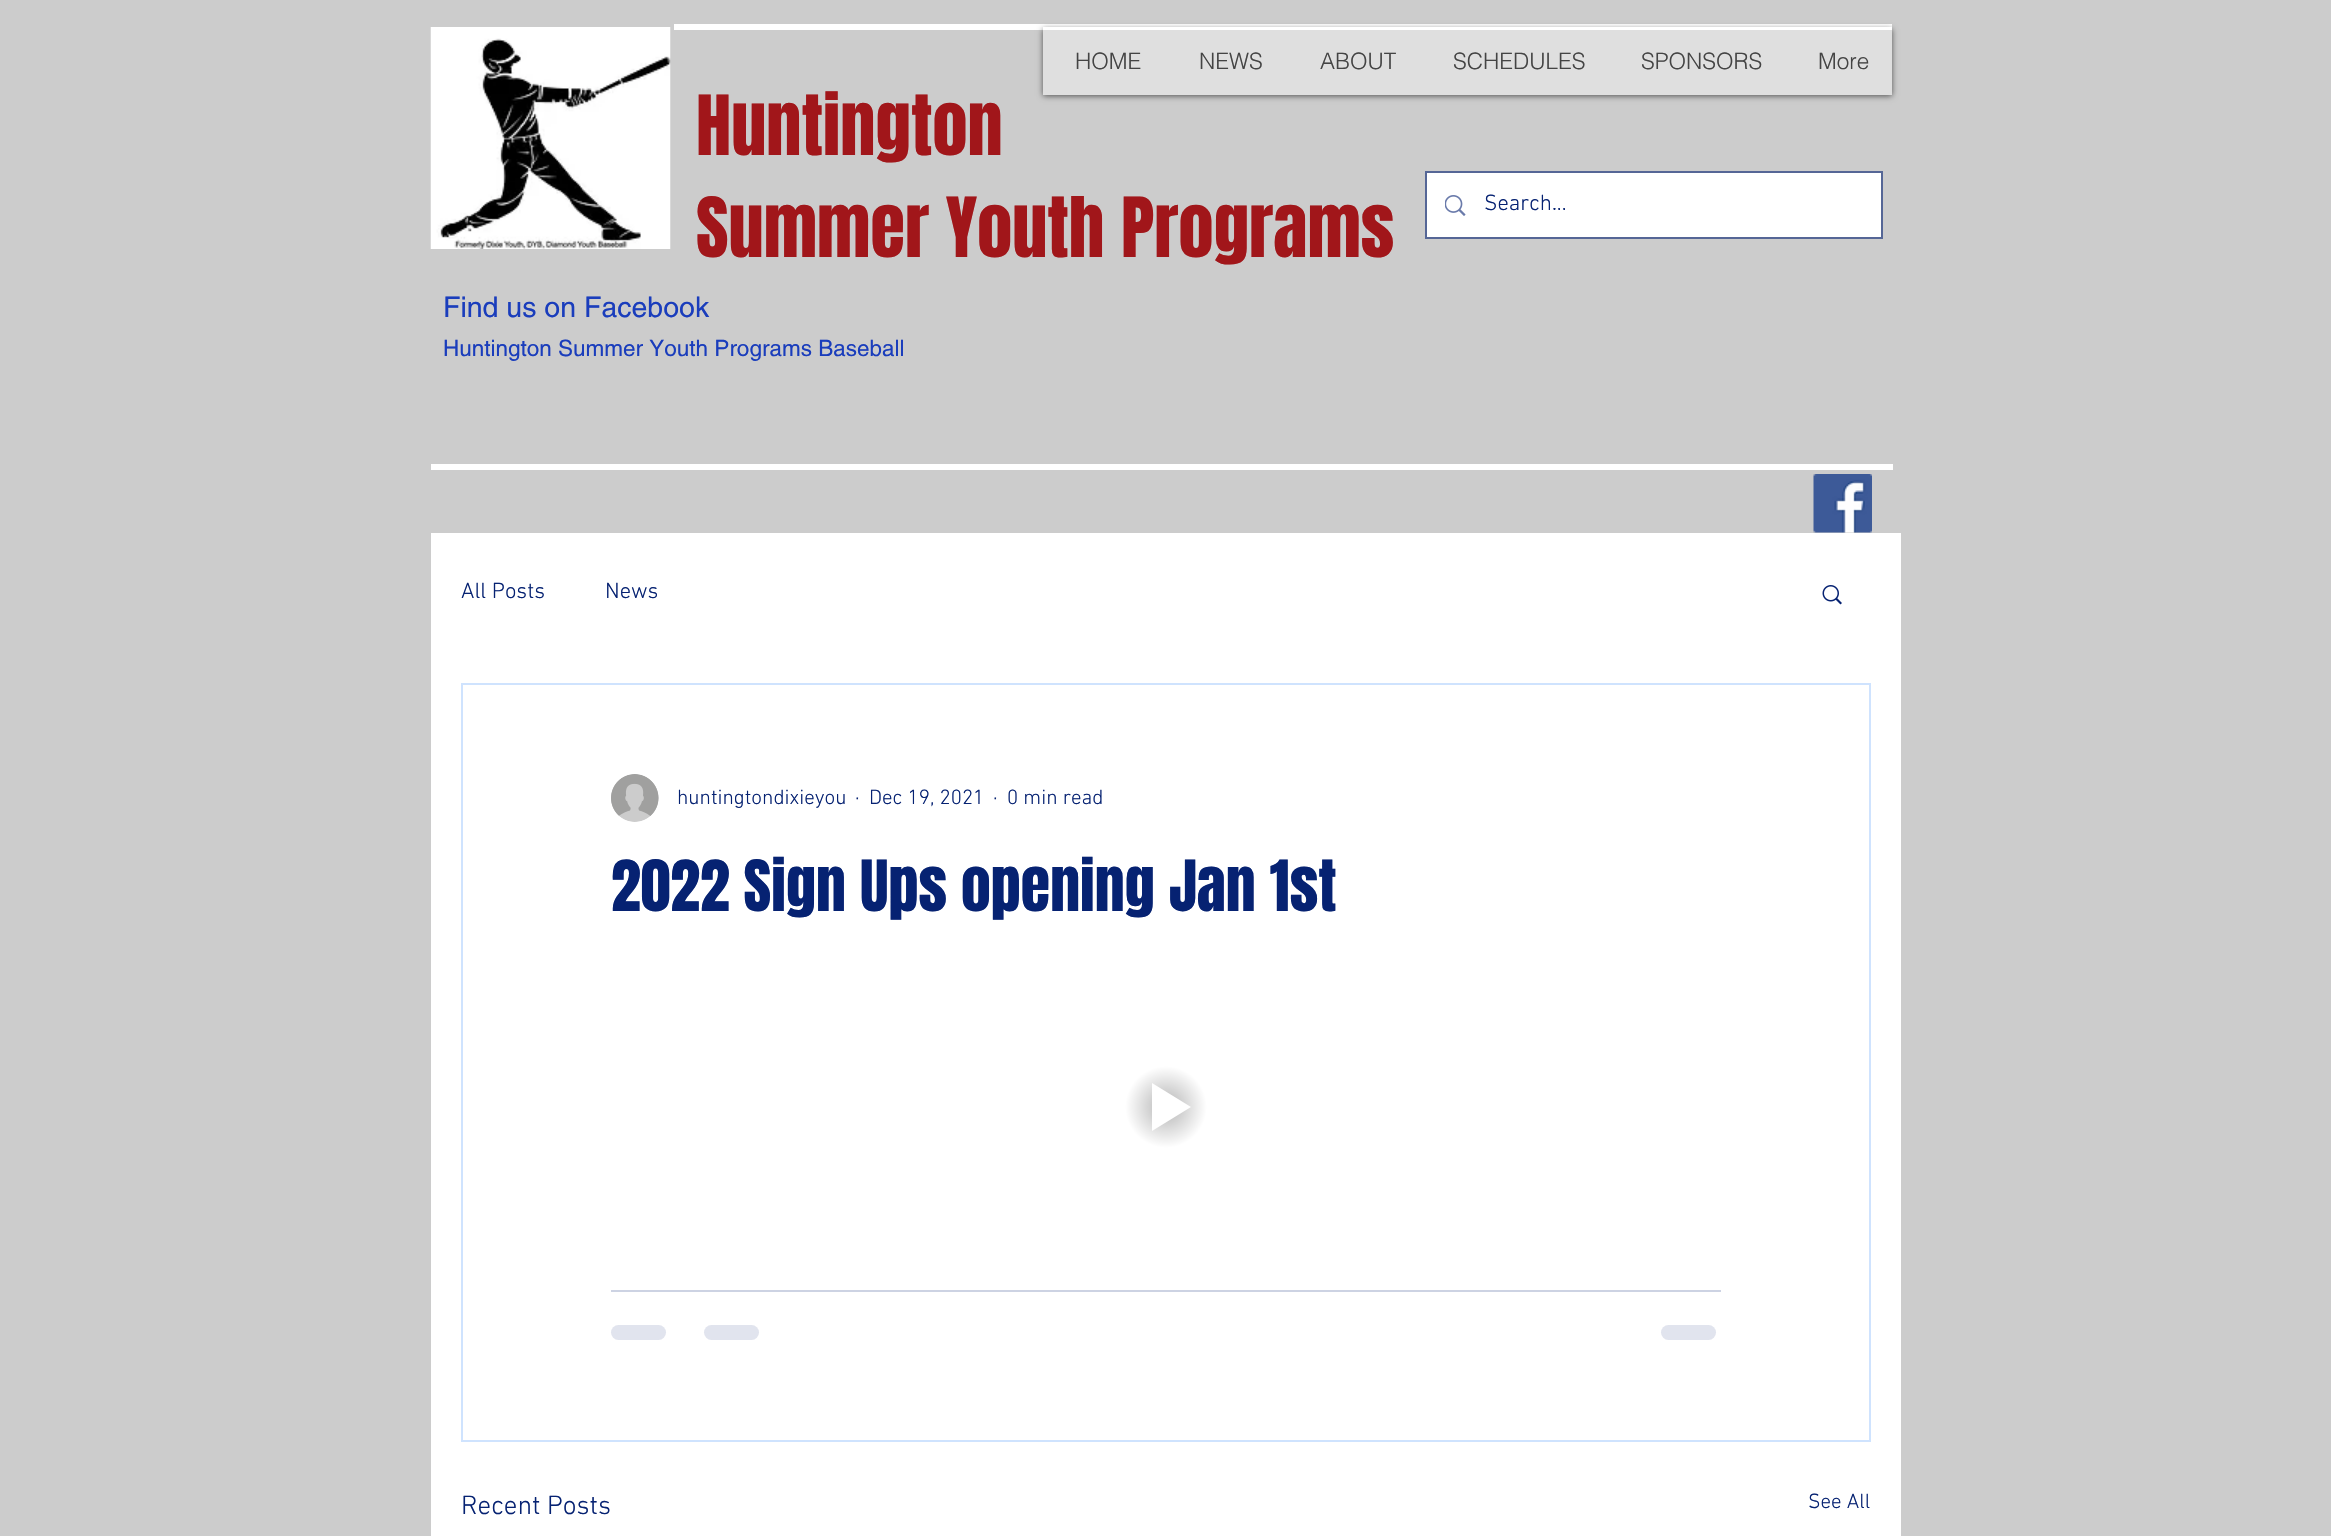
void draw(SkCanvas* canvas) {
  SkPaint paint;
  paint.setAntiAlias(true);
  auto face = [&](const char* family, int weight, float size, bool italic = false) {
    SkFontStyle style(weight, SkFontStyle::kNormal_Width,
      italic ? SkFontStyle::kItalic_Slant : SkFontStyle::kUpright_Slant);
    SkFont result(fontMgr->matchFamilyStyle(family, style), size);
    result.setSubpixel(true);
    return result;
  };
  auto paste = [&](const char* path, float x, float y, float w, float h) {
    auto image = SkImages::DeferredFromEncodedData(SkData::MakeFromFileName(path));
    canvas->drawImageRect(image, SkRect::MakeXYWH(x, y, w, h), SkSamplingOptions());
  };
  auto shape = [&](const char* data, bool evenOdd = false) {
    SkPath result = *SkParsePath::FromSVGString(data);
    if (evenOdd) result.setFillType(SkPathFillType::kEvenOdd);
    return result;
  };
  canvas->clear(0xffcccccc);
  paste("img/1.png", 430, 27, 241, 222);
  paint.setColor(0xffffffff);
  canvas->drawRect(SkRect::MakeXYWH(674, 24, 1218, 6), paint);
  canvas->save();
  canvas->clipPath(shape("M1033 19H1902V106H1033ZM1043 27H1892V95H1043Z", true), true);
  paint.setColor(0x99000000);
  paint.setMaskFilter(SkMaskFilter::MakeBlur(kNormal_SkBlurStyle, 3));
  canvas->drawRect(SkRect::MakeXYWH(1043, 29, 849, 67), paint);
  paint.setMaskFilter(nullptr);
  canvas->restore();
  paint.setColor(0x61ffffff);
  canvas->drawRect(SkRect::MakeXYWH(1043, 27, 849, 68), paint);
  paint.setStroke(true);
  paint.setStrokeWidth(2);
  paint.setColor(0xff556696);
  canvas->drawRect(SkRect::MakeXYWH(1426, 172, 456, 66), paint);
  paint.setStroke(false);
  paint.setColor(0xffffffff);
  canvas->drawRect(SkRect::MakeXYWH(1427, 173, 454, 64), paint);
  paste("img/2.png", 1445, 195, 21, 21);
  canvas->drawRect(SkRect::MakeXYWH(431, 464, 1462, 6), paint);
  paste("img/3.png", 1813, 474, 59, 59);
  canvas->drawRect(SkRect::MakeXYWH(431, 533, 1470, 1003), paint);
  paste("img/4.png", 1822, 585, 20, 20);
  paint.setStroke(true);
  paint.setColor(0xffcfe3fe);
  canvas->drawRect(SkRect::MakeXYWH(462, 684, 1408, 757), paint);
  paste("img/5.png", 611, 774, 48, 48);
  paint.setStroke(false);
  {
    const SkColor colors[] = {0xffb3b3b3, 0xffffffff};
    const float stops[] = {0, 0.6f};
    paint.setShader(SkGradientShader::MakeRadial({1166, 1107}, 68, colors, stops, 2, SkTileMode::kClamp));
    paint.setAlpha(255);
  }
  canvas->drawCircle(1166, 1107, 48, paint);
  paint.setShader(nullptr);
  paint.setColor(0xffffffff);
  canvas->drawPath(shape("M1152 1131V1083L1191 1107Z"), paint);
  paint.setColor(0xffcdd3e3);
  canvas->drawRect(SkRect::MakeXYWH(611, 1290, 1110, 2), paint);
  paint.setColor(0xffe1e4ee);
  canvas->drawRoundRect(SkRect::MakeXYWH(611, 1325, 55, 15), 7.5f, 7.5f, paint);
  canvas->drawRoundRect(SkRect::MakeXYWH(704, 1325, 55, 15), 7.5f, 7.5f, paint);
  canvas->drawRoundRect(SkRect::MakeXYWH(1661, 1325, 55, 15), 7.5f, 7.5f, paint);
  auto f0 = face("helvetica", 300, 22.5f);
  paint.setColor(0xff444444);
  {
    const struct { const char* s; float x, y; } items[] = {
      {"HOME", 1075, 69},
      {"NEWS", 1199, 69},
      {"ABOUT", 1320, 69},
      {"SCHEDULES", 1453, 69},
      {"SPONSORS", 1641, 69},
      {"More", 1818, 69},
    };
    for (auto [s, x, y] : items) {
      canvas->drawString(s, x, y, f0, paint);
    }
  }
  auto f1 = face("Anton", 400, 70.5f);
  paint.setColor(0xffa1161a);
  canvas->drawString("Huntington", 696, 155, f1, paint);
  canvas->drawString("Summer Youth Programs", 696, 257, f1, paint);
  auto f2 = face("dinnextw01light", 300, 22.5f);
  paint.setColor(0xff062272);
  canvas->drawString("Search...", 1484, 210, f2, paint);
  auto f3 = face("helvetica", 400, 28.5f);
  paint.setColor(0xff1a3dbc);
  canvas->drawString("Find us on Facebook", 443, 317, f3, paint);
  auto f4 = face("helvetica", 400, 22.5f);
  canvas->drawString("Huntington Summer Youth Programs Baseball", 443, 356, f4, paint);
  paint.setColor(0xff062272);
  canvas->drawString("All Posts", 461, 598, f2, paint);
  canvas->drawString("News", 605, 598, f2, paint);
  auto f5 = face("dinnextw01light", 300, 21);
  {
    const struct { const char* s; float x, y; } items[] = {
      {"huntingtondixieyou", 677, 804},
      {"·", 855, 804},
      {"Dec 19, 2021", 869, 804},
      {"·", 993, 804},
      {"0 min read", 1007, 804},
    };
    for (auto [s, x, y] : items) {
      canvas->drawString(s, x, y, f5, paint);
    }
  }
  auto f6 = face("Anton", 400, 60);
  canvas->drawString("2022 Sign Ups opening Jan 1st", 611, 911, f6, paint);
  auto f7 = face("dinnextw01light", 300, 27);
  canvas->drawString("Recent Posts", 461, 1514, f7, paint);
  canvas->drawString("See All", 1808, 1508, f5, paint);
}
